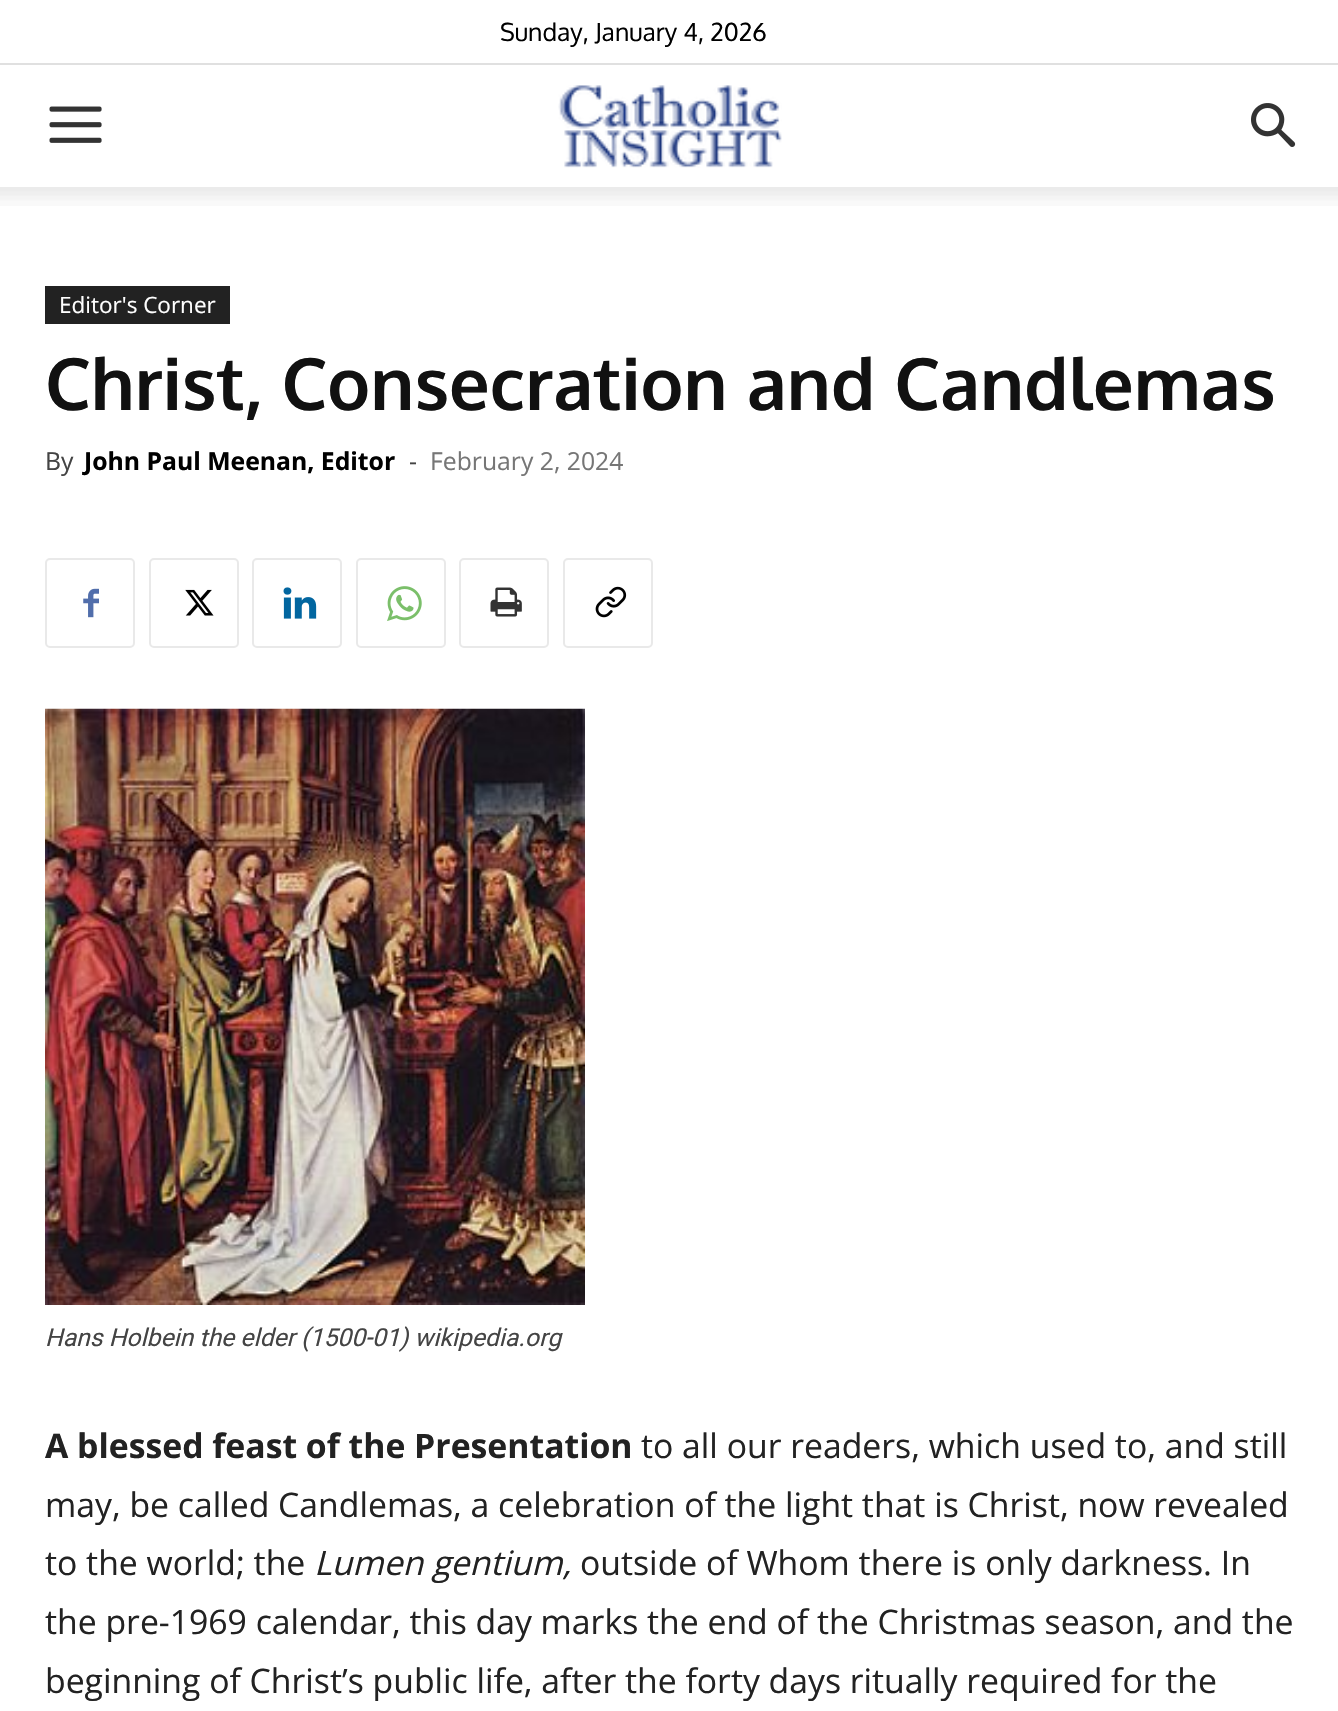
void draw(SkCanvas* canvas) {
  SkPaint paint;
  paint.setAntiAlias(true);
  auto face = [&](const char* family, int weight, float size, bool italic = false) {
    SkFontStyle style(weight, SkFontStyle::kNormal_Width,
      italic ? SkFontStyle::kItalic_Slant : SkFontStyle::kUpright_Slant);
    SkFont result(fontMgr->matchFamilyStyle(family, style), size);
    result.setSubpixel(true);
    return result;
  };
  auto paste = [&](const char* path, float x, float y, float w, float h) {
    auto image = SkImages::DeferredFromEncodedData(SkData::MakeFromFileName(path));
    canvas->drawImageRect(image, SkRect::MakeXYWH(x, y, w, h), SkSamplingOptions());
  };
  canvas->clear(0xffffffff);
  paint.setColor(0xffe0e0e0);
  canvas->drawRect(SkRect::MakeXYWH(0, 63, 1338, 2), paint);
  paste("img/1.png", 49, 106, 53, 37);
  paste("img/2.png", 558, 85, 224, 83);
  paste("img/3.png", 1251, 103, 45, 44);
  paste("img/4.png", 0, 187, 1338, 19);
  paint.setColor(0xff222222);
  canvas->drawRect(SkRect::MakeXYWH(45, 286, 185, 38), paint);
  paint.setStroke(true);
  paint.setStrokeWidth(2);
  paint.setColor(0xffe9e9e9);
  canvas->drawRoundRect(SkRect::MakeXYWH(46, 559, 88, 88), 4, 4, paint);
  paste("img/5.png", 83, 588, 16, 30);
  canvas->drawRoundRect(SkRect::MakeXYWH(150, 559, 88, 88), 4, 4, paint);
  paste("img/6.png", 185, 589, 29, 27);
  canvas->drawRoundRect(SkRect::MakeXYWH(253, 559, 88, 88), 4, 4, paint);
  paste("img/7.png", 283, 587, 34, 32);
  canvas->drawRoundRect(SkRect::MakeXYWH(357, 559, 88, 88), 4, 4, paint);
  paste("img/8.png", 387, 586, 35, 35);
  canvas->drawRoundRect(SkRect::MakeXYWH(460, 559, 88, 88), 4, 4, paint);
  paste("img/9.png", 490, 587, 32, 30);
  canvas->drawRoundRect(SkRect::MakeXYWH(564, 559, 88, 88), 4, 4, paint);
  paste("img/10.png", 595, 586, 32, 32);
  paste("img/11.png", 45, 708, 540, 597);
  auto f0 = face("Oxygen", 400, 24.75f);
  paint.setStroke(false);
  paint.setColor(0xff000000);
  canvas->drawString("Sunday, January 4, 2026", 500, 41, f0, paint);
  auto f1 = face("Open Sans", 400, 22.5f);
  paint.setColor(0xffffffff);
  canvas->drawString("Editor's Corner", 59, 313, f1, paint);
  auto f2 = face("Oxygen", 700, 72);
  paint.setColor(0xff111111);
  canvas->drawString("Christ, Consecration and Candlemas", 45, 410, f2, paint);
  auto f3 = face("Open Sans", 400, 24.75f);
  paint.setColor(0xff444444);
  canvas->drawString("By", 45, 470, f3, paint);
  auto f4 = face("Open Sans", 700, 24.75f);
  paint.setColor(0xff000000);
  canvas->drawString("John Paul Meenan, Editor", 84, 470, f4, paint);
  paint.setColor(0xff444444);
  canvas->drawString("-", 409, 470, f3, paint);
  paint.setColor(0xff767676);
  canvas->drawString("February 2, 2024", 430, 470, f3, paint);
  auto f5 = face("Roboto", 400, 24.75f, true);
  paint.setColor(0xff444444);
  canvas->drawString("Hans Holbein the elder (1500-01) wikipedia.org", 45, 1346, f5, paint);
  auto f6 = face("Open Sans", 700, 33.75f);
  paint.setColor(0xff222222);
  canvas->drawString("A blessed feast of the Presentation", 45, 1458, f6, paint);
  auto f7 = face("Open Sans", 400, 33.75f);
  {
    const struct { const char* s; float x, y; } items[] = {
      {"to all our readers, which used to, and still", 641, 1458},
      {"may, be called Candlemas, a celebration of the light that is Christ, now revealed", 45, 1517},
      {"to the world; the", 45, 1575},
    };
    for (auto [s, x, y] : items) {
      canvas->drawString(s, x, y, f7, paint);
    }
  }
  auto f8 = face("Open Sans", 400, 33.75f, true);
  canvas->drawString("Lumen gentium,", 314, 1575, f8, paint);
  {
    const struct { const char* s; float x, y; } items[] = {
      {"outside of Whom there is only darkness. In", 580, 1575},
      {"the pre-1969 calendar, this day marks the end of the Christmas season, and the", 45, 1634},
      {"beginning of Christ’s public life, after the forty days ritually required for the", 45, 1693},
    };
    for (auto [s, x, y] : items) {
      canvas->drawString(s, x, y, f7, paint);
    }
  }
}
